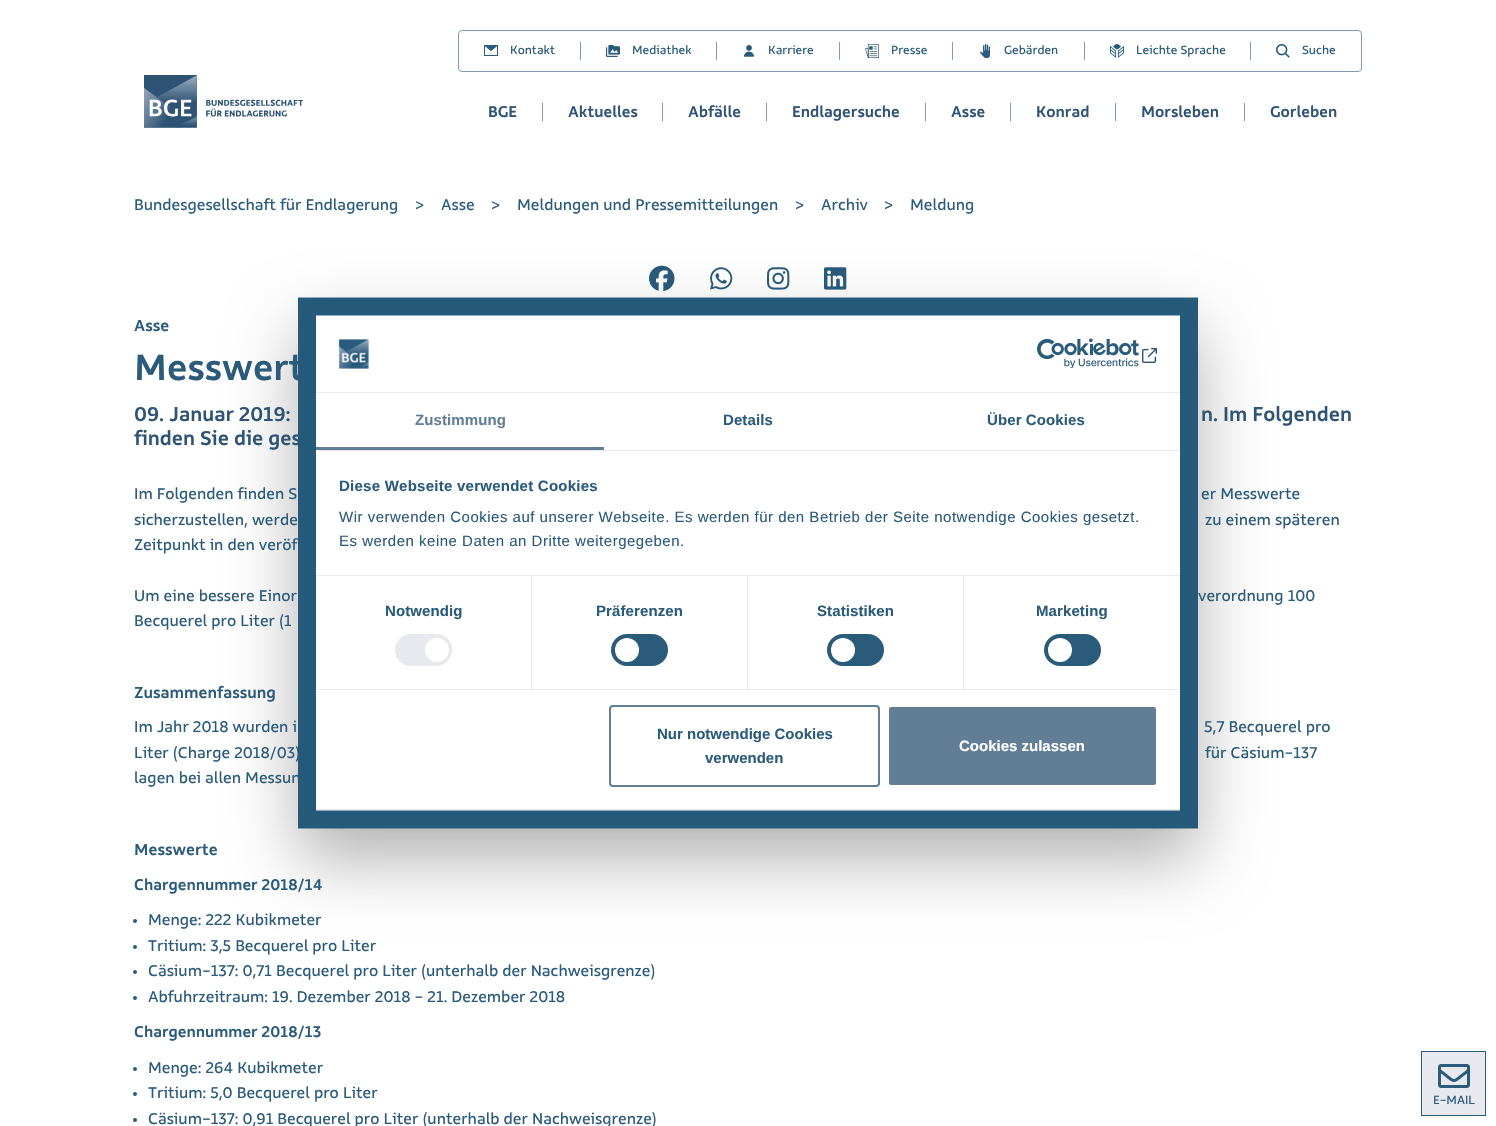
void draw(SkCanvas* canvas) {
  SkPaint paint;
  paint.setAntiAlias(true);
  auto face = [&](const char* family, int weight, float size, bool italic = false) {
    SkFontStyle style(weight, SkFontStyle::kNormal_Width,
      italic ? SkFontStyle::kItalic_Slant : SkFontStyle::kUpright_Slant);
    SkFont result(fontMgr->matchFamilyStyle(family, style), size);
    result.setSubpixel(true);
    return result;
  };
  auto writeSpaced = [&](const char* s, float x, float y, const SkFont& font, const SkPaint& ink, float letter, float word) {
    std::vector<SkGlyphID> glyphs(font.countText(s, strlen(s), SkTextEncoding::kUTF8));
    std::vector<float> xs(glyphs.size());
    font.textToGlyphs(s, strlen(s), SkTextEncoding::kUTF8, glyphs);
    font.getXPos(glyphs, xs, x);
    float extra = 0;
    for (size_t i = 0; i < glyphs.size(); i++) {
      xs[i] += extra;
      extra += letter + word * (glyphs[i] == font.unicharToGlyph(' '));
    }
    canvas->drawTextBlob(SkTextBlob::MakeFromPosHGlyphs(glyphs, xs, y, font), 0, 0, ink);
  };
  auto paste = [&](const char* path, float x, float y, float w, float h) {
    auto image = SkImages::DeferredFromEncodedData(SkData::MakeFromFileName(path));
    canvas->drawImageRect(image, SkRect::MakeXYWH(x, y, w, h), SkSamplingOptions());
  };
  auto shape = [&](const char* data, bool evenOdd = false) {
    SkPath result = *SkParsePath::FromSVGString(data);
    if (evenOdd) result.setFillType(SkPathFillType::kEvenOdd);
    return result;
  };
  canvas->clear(0xffffffff);
  paint.setStroke(true);
  paint.setStrokeWidth(1);
  paint.setColor(0xff809db0);
  canvas->drawRoundRect(SkRect::MakeXYWH(458.5f, 30.5f, 903, 41), 3.5f, 3.5f, paint);
  paste("img/1.png", 484, 45, 14, 11);
  paint.setStroke(false);
  canvas->drawRect(SkRect::MakeXYWH(580, 42, 1, 18), paint);
  paste("img/2.png", 606, 45, 14, 12);
  canvas->drawRect(SkRect::MakeXYWH(716, 42, 1, 18), paint);
  paste("img/3.png", 744, 45, 10, 12);
  canvas->drawRect(SkRect::MakeXYWH(839, 42, 1, 18), paint);
  paste("img/4.png", 865, 44, 14, 14);
  canvas->drawRect(SkRect::MakeXYWH(952, 42, 1, 18), paint);
  paste("img/5.png", 980, 44, 10, 14);
  canvas->drawRect(SkRect::MakeXYWH(1084, 42, 1, 18), paint);
  paste("img/6.png", 1110, 44, 14, 14);
  canvas->drawRect(SkRect::MakeXYWH(1250, 42, 1, 18), paint);
  paste("img/7.png", 1276, 44, 14, 14);
  paste("img/8.png", 144, 75, 159, 53);
  {
    const struct { float x, y, w, h; SkColor color; } items[] = {
      {542, 103, 1, 18, 0xff809db0},
      {662, 103, 1, 18, 0xff809db0},
      {766, 103, 1, 18, 0xff809db0},
      {925, 103, 1, 18, 0xff809db0},
      {1010, 103, 1, 18, 0xff809db0},
      {1115, 103, 1, 18, 0xff809db0},
      {1244, 103, 1, 18, 0xff809db0},
    };
    for (auto [x, y, w, h, color] : items) {
      paint.setColor(color);
      canvas->drawRect(SkRect::MakeXYWH(x, y, w, h), paint);
    }
  }
  paste("img/9.png", 649, 265, 26, 26);
  paste("img/10.png", 710, 267, 23, 23);
  paste("img/11.png", 767, 267, 23, 23);
  paste("img/12.png", 824, 267, 23, 23);
  paint.setColor(0xff2b5b7b);
  canvas->drawCircle(135, 921, 2, paint);
  canvas->drawCircle(135, 947, 2, paint);
  canvas->drawCircle(135, 972, 2, paint);
  canvas->drawCircle(135, 998, 2, paint);
  canvas->drawCircle(135, 1069, 2, paint);
  canvas->drawCircle(135, 1094, 2, paint);
  canvas->drawCircle(135, 1120, 2, paint);
  paint.setColor(0x4d000000);
  paint.setMaskFilter(SkMaskFilter::MakeBlur(kNormal_SkBlurStyle, 34));
  canvas->drawRoundRect(SkRect::MakeXYWH(298, 329, 900, 531), 8, 8, paint);
  paint.setMaskFilter(nullptr);
  paint.setColor(0xffe7e9ef);
  canvas->drawRect(SkRect::MakeXYWH(1421.5f, 1051.5f, 64, 64), paint);
  paint.setStroke(true);
  paint.setColor(0xff2b5b7b);
  canvas->drawRect(SkRect::MakeXYWH(1421.5f, 1051.5f, 64, 64), paint);
  paste("img/16.png", 1438, 1064, 32, 24);
  auto f0 = face("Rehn", 400, 13);
  paint.setStroke(false);
  {
    const struct { const char* s; float x, y; } items[] = {
      {"Kontakt", 510, 54},
      {"Mediathek", 632, 54},
      {"Karriere", 768, 54},
      {"Presse", 891, 54},
      {"Gebärden", 1004, 54},
      {"Leichte Sprache", 1136, 54},
      {"Suche", 1302, 54},
    };
    for (auto [s, x, y] : items) {
      canvas->drawString(s, x, y, f0, paint);
    }
  }
  auto f1 = face("Rehn", 500, 17);
  paint.setColor(0xff2e5374);
  {
    const struct { const char* s; float x, y; } items[] = {
      {"BGE", 488, 117},
      {"Aktuelles", 568, 117},
      {"Abfälle", 688, 117},
      {"Endlagersuche", 792, 117},
      {"Asse", 951, 117},
      {"Konrad", 1036, 117},
      {"Morsleben", 1141, 117},
      {"Gorleben", 1270, 117},
    };
    for (auto [s, x, y] : items) {
      canvas->drawString(s, x, y, f1, paint);
    }
  }
  auto f2 = face("Rehn", 400, 17);
  paint.setColor(0xff2b5b7b);
  {
    const struct { const char* s; float x, y; } items[] = {
      {"Bundesgesellschaft für Endlagerung", 134, 210},
      {">", 415, 210},
      {"Asse", 441, 210},
      {">", 491, 210},
      {"Meldungen und Pressemitteilungen", 517, 210},
      {">", 795, 210},
      {"Archiv", 821, 210},
      {">", 884, 210},
      {"Meldung", 910, 210},
    };
    for (auto [s, x, y] : items) {
      canvas->drawString(s, x, y, f2, paint);
    }
  }
  auto f3 = face("Rehn", 500, 17.5f);
  canvas->drawString("Asse", 134, 331, f3, paint);
  auto f4 = face("Rehn", 500, 40);
  canvas->drawString("Messwert", 134, 380, f4, paint);
  auto f5 = face("Rehn", 500, 22);
  paint.setColor(0xff2e5374);
  {
    const struct { const char* s; float x, y; } items[] = {
      {"09. Januar 2019:", 134, 421},
      {"n. Im Folgenden", 1201, 421},
      {"finden Sie die ges", 134, 445},
    };
    for (auto [s, x, y] : items) {
      canvas->drawString(s, x, y, f5, paint);
    }
  }
  paint.setColor(0xff2b5b7b);
  {
    const struct { const char* s; float x, y; } items[] = {
      {"Im Folgenden finden S", 134, 499},
      {"er Messwerte", 1201, 499},
      {"sicherzustellen, werde", 134, 525},
      {"zu einem späteren", 1205, 525},
      {"Zeitpunkt in den veröf", 134, 550},
      {"Um eine bessere Einor", 134, 601},
      {"verordnung 100", 1198, 601},
      {"Becquerel pro Liter (1", 134, 626},
    };
    for (auto [s, x, y] : items) {
      canvas->drawString(s, x, y, f2, paint);
    }
  }
  canvas->drawString("Zusammenfassung", 134, 698, f3, paint);
  {
    const struct { const char* s; float x, y; } items[] = {
      {"Im Jahr 2018 wurden i", 134, 732},
      {"5,7 Becquerel pro", 1204, 732},
      {"Liter (Charge 2018/03)", 134, 758},
      {"für Cäsium-137", 1205, 758},
      {"lagen bei allen Messun", 134, 783},
    };
    for (auto [s, x, y] : items) {
      canvas->drawString(s, x, y, f2, paint);
    }
  }
  canvas->drawString("Messwerte", 134, 855, f3, paint);
  canvas->drawString("Chargennummer 2018/14", 134, 890, f1, paint);
  {
    const struct { const char* s; float x, y; } items[] = {
      {"Menge: 222 Kubikmeter", 148, 925},
      {"Tritium: 3,5 Becquerel pro Liter", 148, 951},
      {"Cäsium-137: 0,71 Becquerel pro Liter (unterhalb der Nachweisgrenze)", 148, 976},
      {"Abfuhrzeitraum: 19. Dezember 2018 - 21. Dezember 2018", 148, 1002},
    };
    for (auto [s, x, y] : items) {
      canvas->drawString(s, x, y, f2, paint);
    }
  }
  canvas->drawString("Chargennummer 2018/13", 134, 1037, f1, paint);
  {
    const struct { const char* s; float x, y; } items[] = {
      {"Menge: 264 Kubikmeter", 148, 1073},
      {"Tritium: 5,0 Becquerel pro Liter", 148, 1098},
      {"Cäsium-137: 0,91 Becquerel pro Liter (unterhalb der Nachweisgrenze)", 148, 1124},
    };
    for (auto [s, x, y] : items) {
      canvas->drawString(s, x, y, f2, paint);
    }
  }
  paint.setColor(0xffffffff);
  canvas->drawRoundRect(SkRect::MakeXYWH(298, 297, 900, 531), 8, 8, paint);
  paint.setStroke(true);
  paint.setStrokeWidth(18);
  paint.setColor(0xff265a7b);
  canvas->drawPath(shape("M307 306.5H1189V819.5H307Z"), paint);
  paint.setStroke(false);
  paint.setColor(0xffe7e9ef);
  canvas->drawRect(SkRect::MakeXYWH(316, 392, 864, 1), paint);
  paste("img/13.png", 338, 339, 32, 30);
  paste("img/14.png", 1037, 338, 102, 30);
  paste("img/15.png", 1142, 348, 15, 15);
  canvas->drawRect(SkRect::MakeXYWH(316, 450, 864, 1), paint);
  paint.setColor(0xff627e97);
  canvas->drawRect(SkRect::MakeXYWH(316, 447, 288, 3), paint);
  auto f6 = face("Liberation Sans", 700, 15);
  writeSpaced("Zustimmung", 415, 425, f6, paint, 0.1f, 0);
  paint.setColor(0xff2b5b7b);
  writeSpaced("Details", 723, 425, f6, paint, 0.1f, 0);
  writeSpaced("Über Cookies", 987, 425, f6, paint, 0.1f, 0);
  paint.setColor(0xffe7e9ef);
  canvas->drawRect(SkRect::MakeXYWH(316, 575, 864, 1), paint);
  paint.setColor(0xff2b5b7b);
  writeSpaced("Diese Webseite verwendet Cookies", 339, 491, f6, paint, 0.25f, 0);
  auto f7 = face("Liberation Sans", 400, 15);
  writeSpaced("Wir verwenden Cookies auf unserer Webseite. Es werden für den Betrieb der Seite notwendige Cookies gesetzt.", 339, 522, f7, paint, 0.5f, 0);
  writeSpaced("Es werden keine Daten an Dritte weitergegeben.", 339, 546, f7, paint, 0.5f, 0);
  paint.setColor(0xffe7e9ef);
  canvas->drawRect(SkRect::MakeXYWH(316, 689, 864, 1), paint);
  canvas->drawRect(SkRect::MakeXYWH(531, 576, 1, 113), paint);
  paint.setColor(0xff2b5b7b);
  writeSpaced("Notwendig", 385, 616, f6, paint, 0.1f, 0);
  paint.setColor(0xffe7e9ef);
  canvas->drawRoundRect(SkRect::MakeXYWH(395, 634, 57, 32), 16, 16, paint);
  paint.setColor(0xffffffff);
  canvas->drawCircle(437, 650, 12, paint);
  paint.setColor(0xffe7e9ef);
  canvas->drawRect(SkRect::MakeXYWH(747, 576, 1, 113), paint);
  paint.setColor(0xff2b5b7b);
  writeSpaced("Präferenzen", 596, 616, f6, paint, 0.1f, 0);
  canvas->drawRoundRect(SkRect::MakeXYWH(611, 634, 57, 32), 16, 16, paint);
  paint.setColor(0xffffffff);
  canvas->drawCircle(627, 650, 12, paint);
  paint.setColor(0xffe7e9ef);
  canvas->drawRect(SkRect::MakeXYWH(963, 576, 1, 113), paint);
  paint.setColor(0xff2b5b7b);
  writeSpaced("Statistiken", 817, 616, f6, paint, 0.1f, 0);
  canvas->drawRoundRect(SkRect::MakeXYWH(827, 634, 57, 32), 16, 16, paint);
  paint.setColor(0xffffffff);
  canvas->drawCircle(843, 650, 12, paint);
  paint.setColor(0xff2b5b7b);
  writeSpaced("Marketing", 1036, 616, f6, paint, 0.1f, 0);
  canvas->drawRoundRect(SkRect::MakeXYWH(1044, 634, 57, 32), 16, 16, paint);
  paint.setColor(0xffffffff);
  canvas->drawCircle(1060, 650, 12, paint);
  paint.setColor(0xffe7e9ef);
  canvas->drawRect(SkRect::MakeXYWH(316, 809, 864, 1), paint);
  paint.setStroke(true);
  paint.setStrokeWidth(2);
  paint.setColor(0xff627e97);
  canvas->drawRoundRect(SkRect::MakeXYWH(610, 706, 269, 80), 3, 3, paint);
  paint.setStroke(false);
  paint.setColor(0xff2b5b7b);
  canvas->drawString("Nur notwendige Cookies", 657, 739, f6, paint);
  canvas->drawString("verwenden", 705, 763, f6, paint);
  paint.setColor(0xff627e97);
  canvas->drawRoundRect(SkRect::MakeXYWH(888, 706, 269, 80), 3, 3, paint);
  paint.setStroke(true);
  paint.setColor(0xffffffff);
  canvas->drawRoundRect(SkRect::MakeXYWH(888, 706, 269, 80), 3, 3, paint);
  paint.setStroke(false);
  canvas->drawString("Cookies zulassen", 959, 751, f6, paint);
  paint.setColor(0xff2b5b7b);
  canvas->drawString("E-MAIL", 1433, 1104, f0, paint);
}
